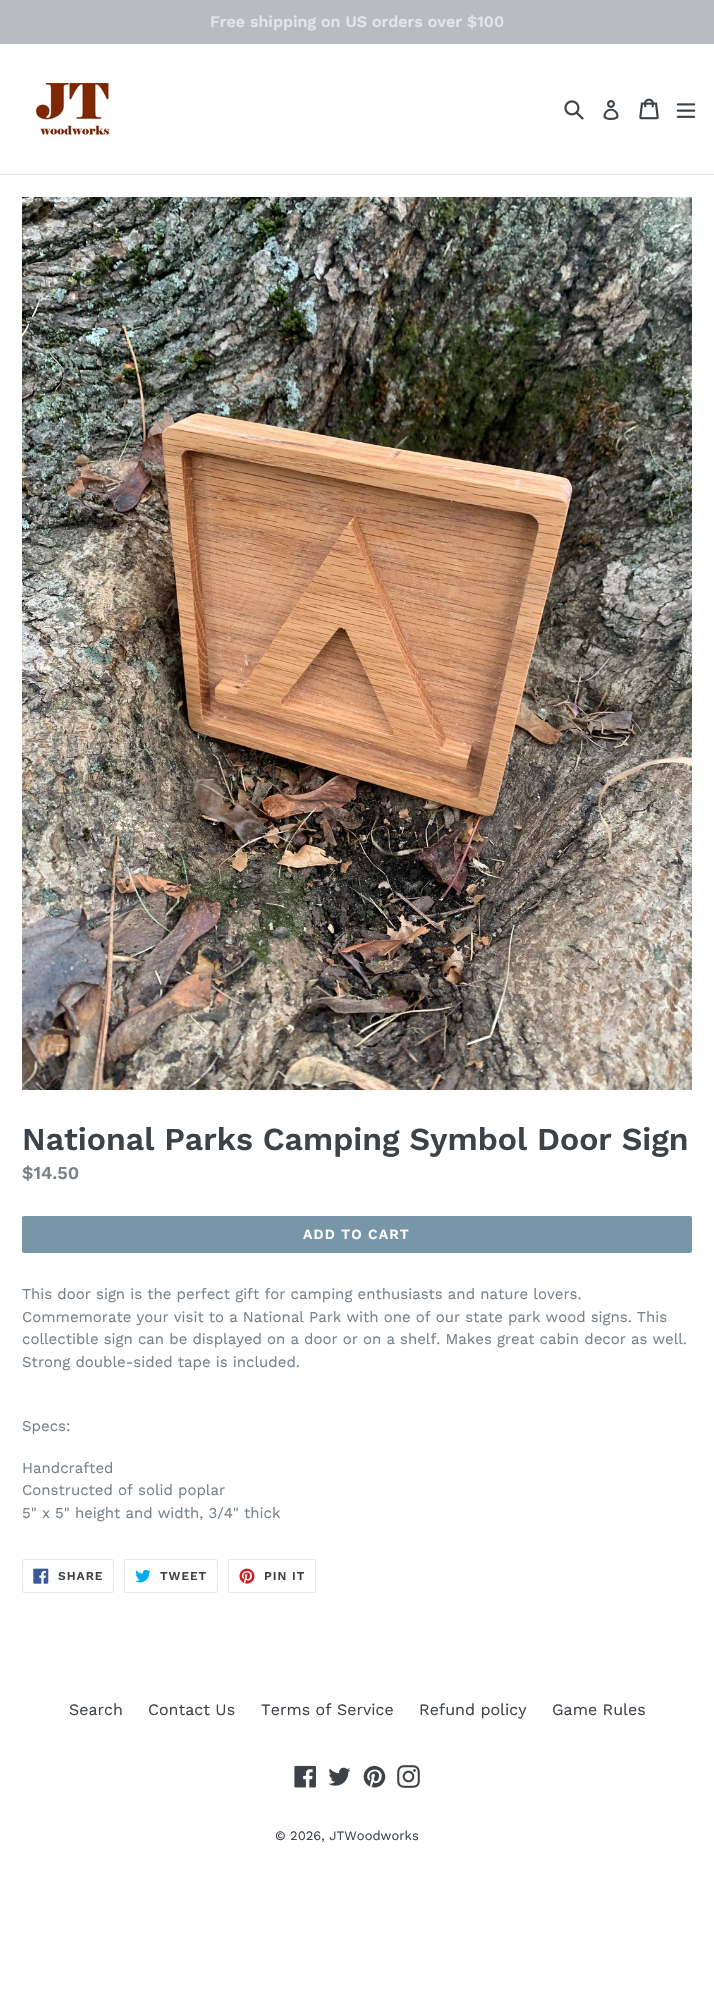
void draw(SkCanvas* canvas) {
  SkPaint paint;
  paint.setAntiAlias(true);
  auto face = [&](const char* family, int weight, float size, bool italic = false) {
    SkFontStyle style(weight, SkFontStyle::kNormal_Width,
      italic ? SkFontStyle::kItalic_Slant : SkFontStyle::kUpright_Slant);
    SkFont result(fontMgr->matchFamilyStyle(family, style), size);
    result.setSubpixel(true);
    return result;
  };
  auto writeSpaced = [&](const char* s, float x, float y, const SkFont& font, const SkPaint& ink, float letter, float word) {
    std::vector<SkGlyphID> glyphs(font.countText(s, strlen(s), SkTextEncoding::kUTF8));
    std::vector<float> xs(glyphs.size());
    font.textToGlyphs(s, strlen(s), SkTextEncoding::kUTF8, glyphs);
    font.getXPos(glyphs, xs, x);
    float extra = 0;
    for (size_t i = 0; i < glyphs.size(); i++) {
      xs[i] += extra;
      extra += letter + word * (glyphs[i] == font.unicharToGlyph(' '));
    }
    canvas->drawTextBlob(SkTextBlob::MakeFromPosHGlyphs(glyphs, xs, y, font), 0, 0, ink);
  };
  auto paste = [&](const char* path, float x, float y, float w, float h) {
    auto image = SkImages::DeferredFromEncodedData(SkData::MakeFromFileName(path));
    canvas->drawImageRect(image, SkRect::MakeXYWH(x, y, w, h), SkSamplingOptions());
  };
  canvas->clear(0xffffffff);
  paint.setColor(0xffb8bcbf);
  canvas->drawRect(SkRect::MakeXYWH(0, 0, 714, 44), paint);
  paint.setColor(0xffe8e9eb);
  canvas->drawRect(SkRect::MakeXYWH(0, 174, 714, 1), paint);
  paste("img/1.png", 33, 81, 78, 58);
  paste("img/2.png", 564, 100, 20, 20);
  paste("img/3.png", 603, 100, 16, 20);
  paste("img/4.png", 639, 98, 20, 22);
  paste("img/5.png", 676, 103, 20, 15);
  paste("img/6.png", 22, 197, 670, 893);
  paint.setColor(0xff7796a8);
  canvas->drawRoundRect(SkRect::MakeXYWH(22, 1216, 670, 37), 2, 2, paint);
  paint.setStroke(true);
  paint.setStrokeWidth(1);
  paint.setColor(0xffe8e9eb);
  canvas->drawRoundRect(SkRect::MakeXYWH(22.5f, 1559.5f, 91, 33), 1.5f, 1.5f, paint);
  paste("img/7.png", 33, 1568, 16, 16);
  canvas->drawRoundRect(SkRect::MakeXYWH(124.5f, 1559.5f, 93, 33), 1.5f, 1.5f, paint);
  paste("img/8.png", 135, 1569, 16, 14);
  canvas->drawRoundRect(SkRect::MakeXYWH(228.5f, 1559.5f, 87, 33), 1.5f, 1.5f, paint);
  paste("img/9.png", 239, 1568, 16, 16);
  paste("img/10.png", 294, 1765, 22, 23);
  paste("img/11.png", 328, 1767, 23, 19);
  paste("img/12.png", 363, 1765, 23, 23);
  paste("img/13.png", 397, 1765, 23, 23);
  auto f0 = face("Work Sans", 600, 16);
  paint.setStroke(false);
  paint.setColor(0xffe3e4e5);
  canvas->drawString("Free shipping on US orders over $100", 210, 27, f0, paint);
  auto f1 = face("Work Sans", 600, 32);
  paint.setColor(0xff3d4246);
  canvas->drawString("National Parks Camping Symbol Door Sign", 22, 1150, f1, paint);
  auto f2 = face("Work Sans", 600, 18);
  paint.setColor(0xff788188);
  canvas->drawString("$14.50", 22, 1179, f2, paint);
  auto f3 = face("Work Sans", 600, 14);
  paint.setColor(0xffffffff);
  writeSpaced("ADD TO CART", 303, 1239, f3, paint, 1.1f, 0);
  auto f4 = face("Work Sans", 400, 15);
  paint.setColor(0xff788188);
  {
    const struct { const char* s; float x, y; } items[] = {
      {"This door sign is the perfect gift for camping enthusiasts and nature lovers.", 22, 1299},
      {"Commemorate your visit to a National Park with one of our state park wood signs. This", 22, 1322},
      {"collectible sign can be displayed on a door or on a shelf. Makes great cabin decor as well.", 22, 1344},
      {"Strong double-sided tape is included.", 22, 1367},
      {"Specs:", 22, 1431},
      {"Handcrafted", 22, 1473},
      {"Constructed of solid poplar", 22, 1495},
      {"5\" x 5\" height and width, 3/4\" thick", 22, 1518},
    };
    for (auto [s, x, y] : items) {
      canvas->drawString(s, x, y, f4, paint);
    }
  }
  auto f5 = face("Work Sans", 600, 12);
  paint.setColor(0xff3d4246);
  {
    const struct { const char* s; float x, y; } items[] = {
      {"SHARE", 58, 1580},
      {"TWEET", 160, 1580},
      {"PIN IT", 264, 1580},
    };
    for (auto [s, x, y] : items) {
      writeSpaced(s, x, y, f5, paint, 1, 0);
    }
  }
  auto f6 = face("Work Sans", 400, 16);
  {
    const struct { const char* s; float x, y; } items[] = {
      {"Search", 69, 1715},
      {"Contact Us", 148, 1715},
      {"Terms of Service", 261, 1715},
      {"Refund policy", 419, 1715},
      {"Game Rules", 552, 1715},
    };
    for (auto [s, x, y] : items) {
      canvas->drawString(s, x, y, f6, paint);
    }
  }
  auto f7 = face("Work Sans", 400, 13);
  canvas->drawString("© 2026, JTWoodworks", 275, 1840, f7, paint);
}
